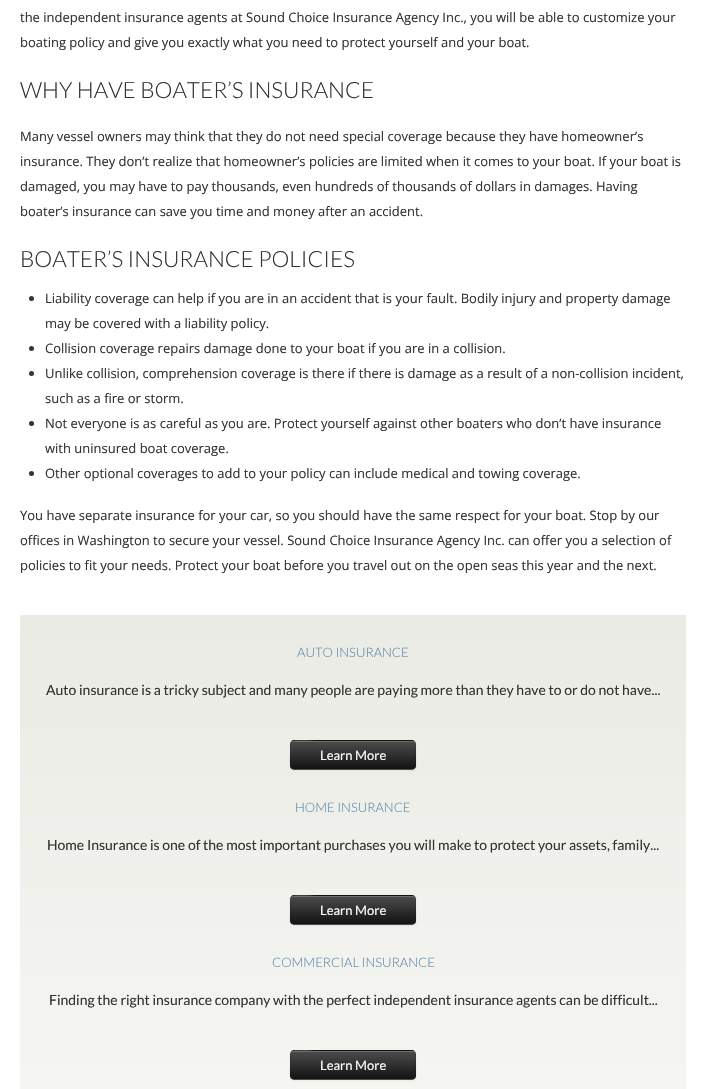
void draw(SkCanvas* canvas) {
  SkPaint paint;
  paint.setAntiAlias(true);
  auto face = [&](const char* family, int weight, float size, bool italic = false) {
    SkFontStyle style(weight, SkFontStyle::kNormal_Width,
      italic ? SkFontStyle::kItalic_Slant : SkFontStyle::kUpright_Slant);
    SkFont result(fontMgr->matchFamilyStyle(family, style), size);
    result.setSubpixel(true);
    return result;
  };
  auto shape = [&](const char* data, bool evenOdd = false) {
    SkPath result = *SkParsePath::FromSVGString(data);
    if (evenOdd) result.setFillType(SkPathFillType::kEvenOdd);
    return result;
  };
  canvas->clear(0xffffffff);
  paint.setColor(0xff333333);
  canvas->drawCircle(31.5f, 298.5f, 2.5f, paint);
  canvas->drawCircle(31.5f, 348.5f, 2.5f, paint);
  canvas->drawCircle(31.5f, 373.5f, 2.5f, paint);
  canvas->drawCircle(31.5f, 423.5f, 2.5f, paint);
  canvas->drawCircle(31.5f, 473.5f, 2.5f, paint);
  {
    const SkColor colors[] = {0xffebebe5, 0xffffffff};
    const float stops[] = {0, 1};
    const SkPoint ends[] = {{353, 615}, {353, 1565}};
    paint.setShader(SkGradientShader::MakeLinear(ends, colors, stops, 2, SkTileMode::kClamp));
    paint.setAlpha(255);
  }
  canvas->drawRect(SkRect::MakeXYWH(20, 615, 666, 474), paint);
  paint.setShader(nullptr);
  paint.setColor(0x0d000000);
  paint.setMaskFilter(SkMaskFilter::MakeBlur(kNormal_SkBlurStyle, 1));
  canvas->drawRoundRect(SkRect::MakeXYWH(290, 741, 126, 30), 4, 4, paint);
  paint.setMaskFilter(nullptr);
  canvas->save();
  canvas->clipPath(shape("M294 740H412C414 740 416 742 416 744V766C416 768 414 770 412 770H294C292 770 290 768 290 766V744C290 742 292 740 294 740Z"), true);
  {
    const SkColor colors[] = {0xff4c4c4c, 0xff131313};
    const float stops[] = {0, 1};
    const SkPoint ends[] = {{353, 713}, {353, 741}};
    paint.setShader(SkGradientShader::MakeLinear(ends, colors, stops, 2, SkTileMode::kClamp));
    paint.setAlpha(255);
  }
  canvas->drawRect(SkRect::MakeXYWH(290, 740, 126, 1), paint);
  {
    const SkColor colors[] = {0xff4c4c4c, 0xff131313};
    const float stops[] = {0, 1};
    const SkPoint ends[] = {{353, 741}, {353, 769}};
    paint.setShader(SkGradientShader::MakeLinear(ends, colors, stops, 2, SkTileMode::kClamp));
    paint.setAlpha(255);
  }
  canvas->drawRect(SkRect::MakeXYWH(290, 741, 126, 28), paint);
  canvas->restore();
  paint.setShader(nullptr);
  paint.setColor(0x33ffffff);
  canvas->drawPath(shape("M294 742H412C414 742 415 743 415 745C415 743 414 741 412 741H314C313 741 291 736 291 745C291 743 292 742 294 742Z"), paint);
  paint.setStroke(true);
  paint.setStrokeWidth(1);
  paint.setColor(0xff4c4c4c);
  canvas->drawPath(shape("M414.5 768.5C414 769 413 769.5 412 769.5H294C293 769.5 292 769 291.5 768.5"), paint);
  paint.setColor(0x1a000000);
  canvas->drawPath(shape("M291.5 768.5C289.5 766.5 290.5 758 290.5 755V747.5C290.5 745 290 740.5 294 740.5H412C416 740.5 415.5 745 415.5 747.5V755C415.5 758 416.5 766.5 414.5 768.5"), paint);
  paint.setStroke(false);
  paint.setColor(0x0d000000);
  paint.setMaskFilter(SkMaskFilter::MakeBlur(kNormal_SkBlurStyle, 1));
  canvas->drawRoundRect(SkRect::MakeXYWH(290, 896, 126, 30), 4, 4, paint);
  paint.setMaskFilter(nullptr);
  canvas->save();
  canvas->clipPath(shape("M294 895H412C414 895 416 897 416 899V921C416 923 414 925 412 925H294C292 925 290 923 290 921V899C290 897 292 895 294 895Z"), true);
  {
    const SkColor colors[] = {0xff4c4c4c, 0xff131313};
    const float stops[] = {0, 1};
    const SkPoint ends[] = {{353, 868}, {353, 896}};
    paint.setShader(SkGradientShader::MakeLinear(ends, colors, stops, 2, SkTileMode::kClamp));
    paint.setAlpha(255);
  }
  canvas->drawRect(SkRect::MakeXYWH(290, 895, 126, 1), paint);
  {
    const SkColor colors[] = {0xff4c4c4c, 0xff131313};
    const float stops[] = {0, 1};
    const SkPoint ends[] = {{353, 896}, {353, 924}};
    paint.setShader(SkGradientShader::MakeLinear(ends, colors, stops, 2, SkTileMode::kClamp));
    paint.setAlpha(255);
  }
  canvas->drawRect(SkRect::MakeXYWH(290, 896, 126, 28), paint);
  canvas->restore();
  paint.setShader(nullptr);
  paint.setColor(0x33ffffff);
  canvas->drawPath(shape("M294 897H412C414 897 415 898 415 900C415 898 414 896 412 896H314C313 896 291 891 291 900C291 898 292 897 294 897Z"), paint);
  paint.setStroke(true);
  paint.setColor(0xff4c4c4c);
  canvas->drawPath(shape("M414.5 923.5C414 924 413 924.5 412 924.5H294C293 924.5 292 924 291.5 923.5"), paint);
  paint.setColor(0x1a000000);
  canvas->drawPath(shape("M291.5 923.5C289.5 921.5 290.5 913 290.5 910V902.5C290.5 900 290 895.5 294 895.5H412C416 895.5 415.5 900 415.5 902.5V910C415.5 913 416.5 921.5 414.5 923.5"), paint);
  paint.setStroke(false);
  paint.setColor(0x0d000000);
  paint.setMaskFilter(SkMaskFilter::MakeBlur(kNormal_SkBlurStyle, 1));
  canvas->drawRoundRect(SkRect::MakeXYWH(290, 1051, 126, 30), 4, 4, paint);
  paint.setMaskFilter(nullptr);
  canvas->save();
  canvas->clipPath(shape("M294 1050H412C414 1050 416 1052 416 1054V1076C416 1078 414 1080 412 1080H294C292 1080 290 1078 290 1076V1054C290 1052 292 1050 294 1050Z"), true);
  {
    const SkColor colors[] = {0xff4c4c4c, 0xff131313};
    const float stops[] = {0, 1};
    const SkPoint ends[] = {{353, 1023}, {353, 1051}};
    paint.setShader(SkGradientShader::MakeLinear(ends, colors, stops, 2, SkTileMode::kClamp));
    paint.setAlpha(255);
  }
  canvas->drawRect(SkRect::MakeXYWH(290, 1050, 126, 1), paint);
  {
    const SkColor colors[] = {0xff4c4c4c, 0xff131313};
    const float stops[] = {0, 1};
    const SkPoint ends[] = {{353, 1051}, {353, 1079}};
    paint.setShader(SkGradientShader::MakeLinear(ends, colors, stops, 2, SkTileMode::kClamp));
    paint.setAlpha(255);
  }
  canvas->drawRect(SkRect::MakeXYWH(290, 1051, 126, 28), paint);
  canvas->restore();
  paint.setShader(nullptr);
  paint.setColor(0x33ffffff);
  canvas->drawPath(shape("M294 1052H412C414 1052 415 1053 415 1055C415 1053 414 1051 412 1051H314C313 1051 291 1046 291 1055C291 1053 292 1052 294 1052Z"), paint);
  paint.setStroke(true);
  paint.setColor(0xff4c4c4c);
  canvas->drawPath(shape("M414.5 1078.5C414 1079 413 1079.5 412 1079.5H294C293 1079.5 292 1079 291.5 1078.5"), paint);
  paint.setColor(0x1a000000);
  canvas->drawPath(shape("M291.5 1078.5C289.5 1076.5 290.5 1068 290.5 1065V1057.5C290.5 1055 290 1050.5 294 1050.5H412C416 1050.5 415.5 1055 415.5 1057.5V1065C415.5 1068 416.5 1076.5 414.5 1078.5"), paint);
  auto f0 = face("Open Sans", 400, 13);
  paint.setStroke(false);
  paint.setColor(0xff333333);
  canvas->drawString("the independent insurance agents at Sound Choice Insurance Agency Inc., you will be able to customize your", 20, 22, f0, paint);
  canvas->drawString("boating policy and give you exactly what you need to protect yourself and your boat.", 20, 47, f0, paint);
  auto f1 = face("Lato", 300, 22.4f);
  canvas->drawString("WHY HAVE BOATER’S INSURANCE", 20, 98, f1, paint);
  {
    const struct { const char* s; float x, y; } items[] = {
      {"Many vessel owners may think that they do not need special coverage because they have homeowner’s", 20, 141},
      {"insurance. They don’t realize that homeowner’s policies are limited when it comes to your boat. If your boat is", 20, 166},
      {"damaged, you may have to pay thousands, even hundreds of thousands of dollars in damages. Having", 20, 191},
      {"boater’s insurance can save you time and money after an accident.", 20, 216},
    };
    for (auto [s, x, y] : items) {
      canvas->drawString(s, x, y, f0, paint);
    }
  }
  canvas->drawString("BOATER’S INSURANCE POLICIES", 20, 267, f1, paint);
  {
    const struct { const char* s; float x, y; } items[] = {
      {"Liability coverage can help if you are in an accident that is your fault. Bodily injury and property damage", 45, 303},
      {"may be covered with a liability policy.", 45, 328},
      {"Collision coverage repairs damage done to your boat if you are in a collision.", 45, 353},
      {"Unlike collision, comprehension coverage is there if there is damage as a result of a non-collision incident,", 45, 378},
      {"such as a fire or storm.", 45, 403},
      {"Not everyone is as careful as you are. Protect yourself against other boaters who don’t have insurance", 45, 428},
      {"with uninsured boat coverage.", 45, 453},
      {"Other optional coverages to add to your policy can include medical and towing coverage.", 45, 478},
      {"You have separate insurance for your car, so you should have the same respect for your boat. Stop by our", 20, 520},
      {"offices in Washington to secure your vessel. Sound Choice Insurance Agency Inc. can offer you a selection of", 20, 545},
      {"policies to fit your needs. Protect your boat before you travel out on the open seas this year and the next.", 20, 570},
    };
    for (auto [s, x, y] : items) {
      canvas->drawString(s, x, y, f0, paint);
    }
  }
  auto f2 = face("Lato", 300, 13);
  paint.setColor(0xff5c88aa);
  canvas->drawString("AUTO INSURANCE", 297, 657, f2, paint);
  auto f3 = face("Lato", 400, 14);
  paint.setColor(0xff333333);
  canvas->drawString("Auto insurance is a tricky subject and many people are paying more than they have to or do not have...", 46, 695, f3, paint);
  auto f4 = face("Lato", 400, 13);
  paint.setColor(0xffffffff);
  canvas->drawString("Learn More", 320, 760, f4, paint);
  paint.setColor(0xff5c88aa);
  canvas->drawString("HOME INSURANCE", 295, 812, f2, paint);
  paint.setColor(0xff333333);
  canvas->drawString("Home Insurance is one of the most important purchases you will make to protect your assets, family...", 47, 850, f3, paint);
  paint.setColor(0xffffffff);
  canvas->drawString("Learn More", 320, 915, f4, paint);
  paint.setColor(0xff5c88aa);
  canvas->drawString("COMMERCIAL INSURANCE", 272, 967, f2, paint);
  paint.setColor(0xff333333);
  canvas->drawString("Finding the right insurance company with the perfect independent insurance agents can be difficult...", 49, 1005, f3, paint);
  paint.setColor(0xffffffff);
  canvas->drawString("Learn More", 320, 1070, f4, paint);
}
